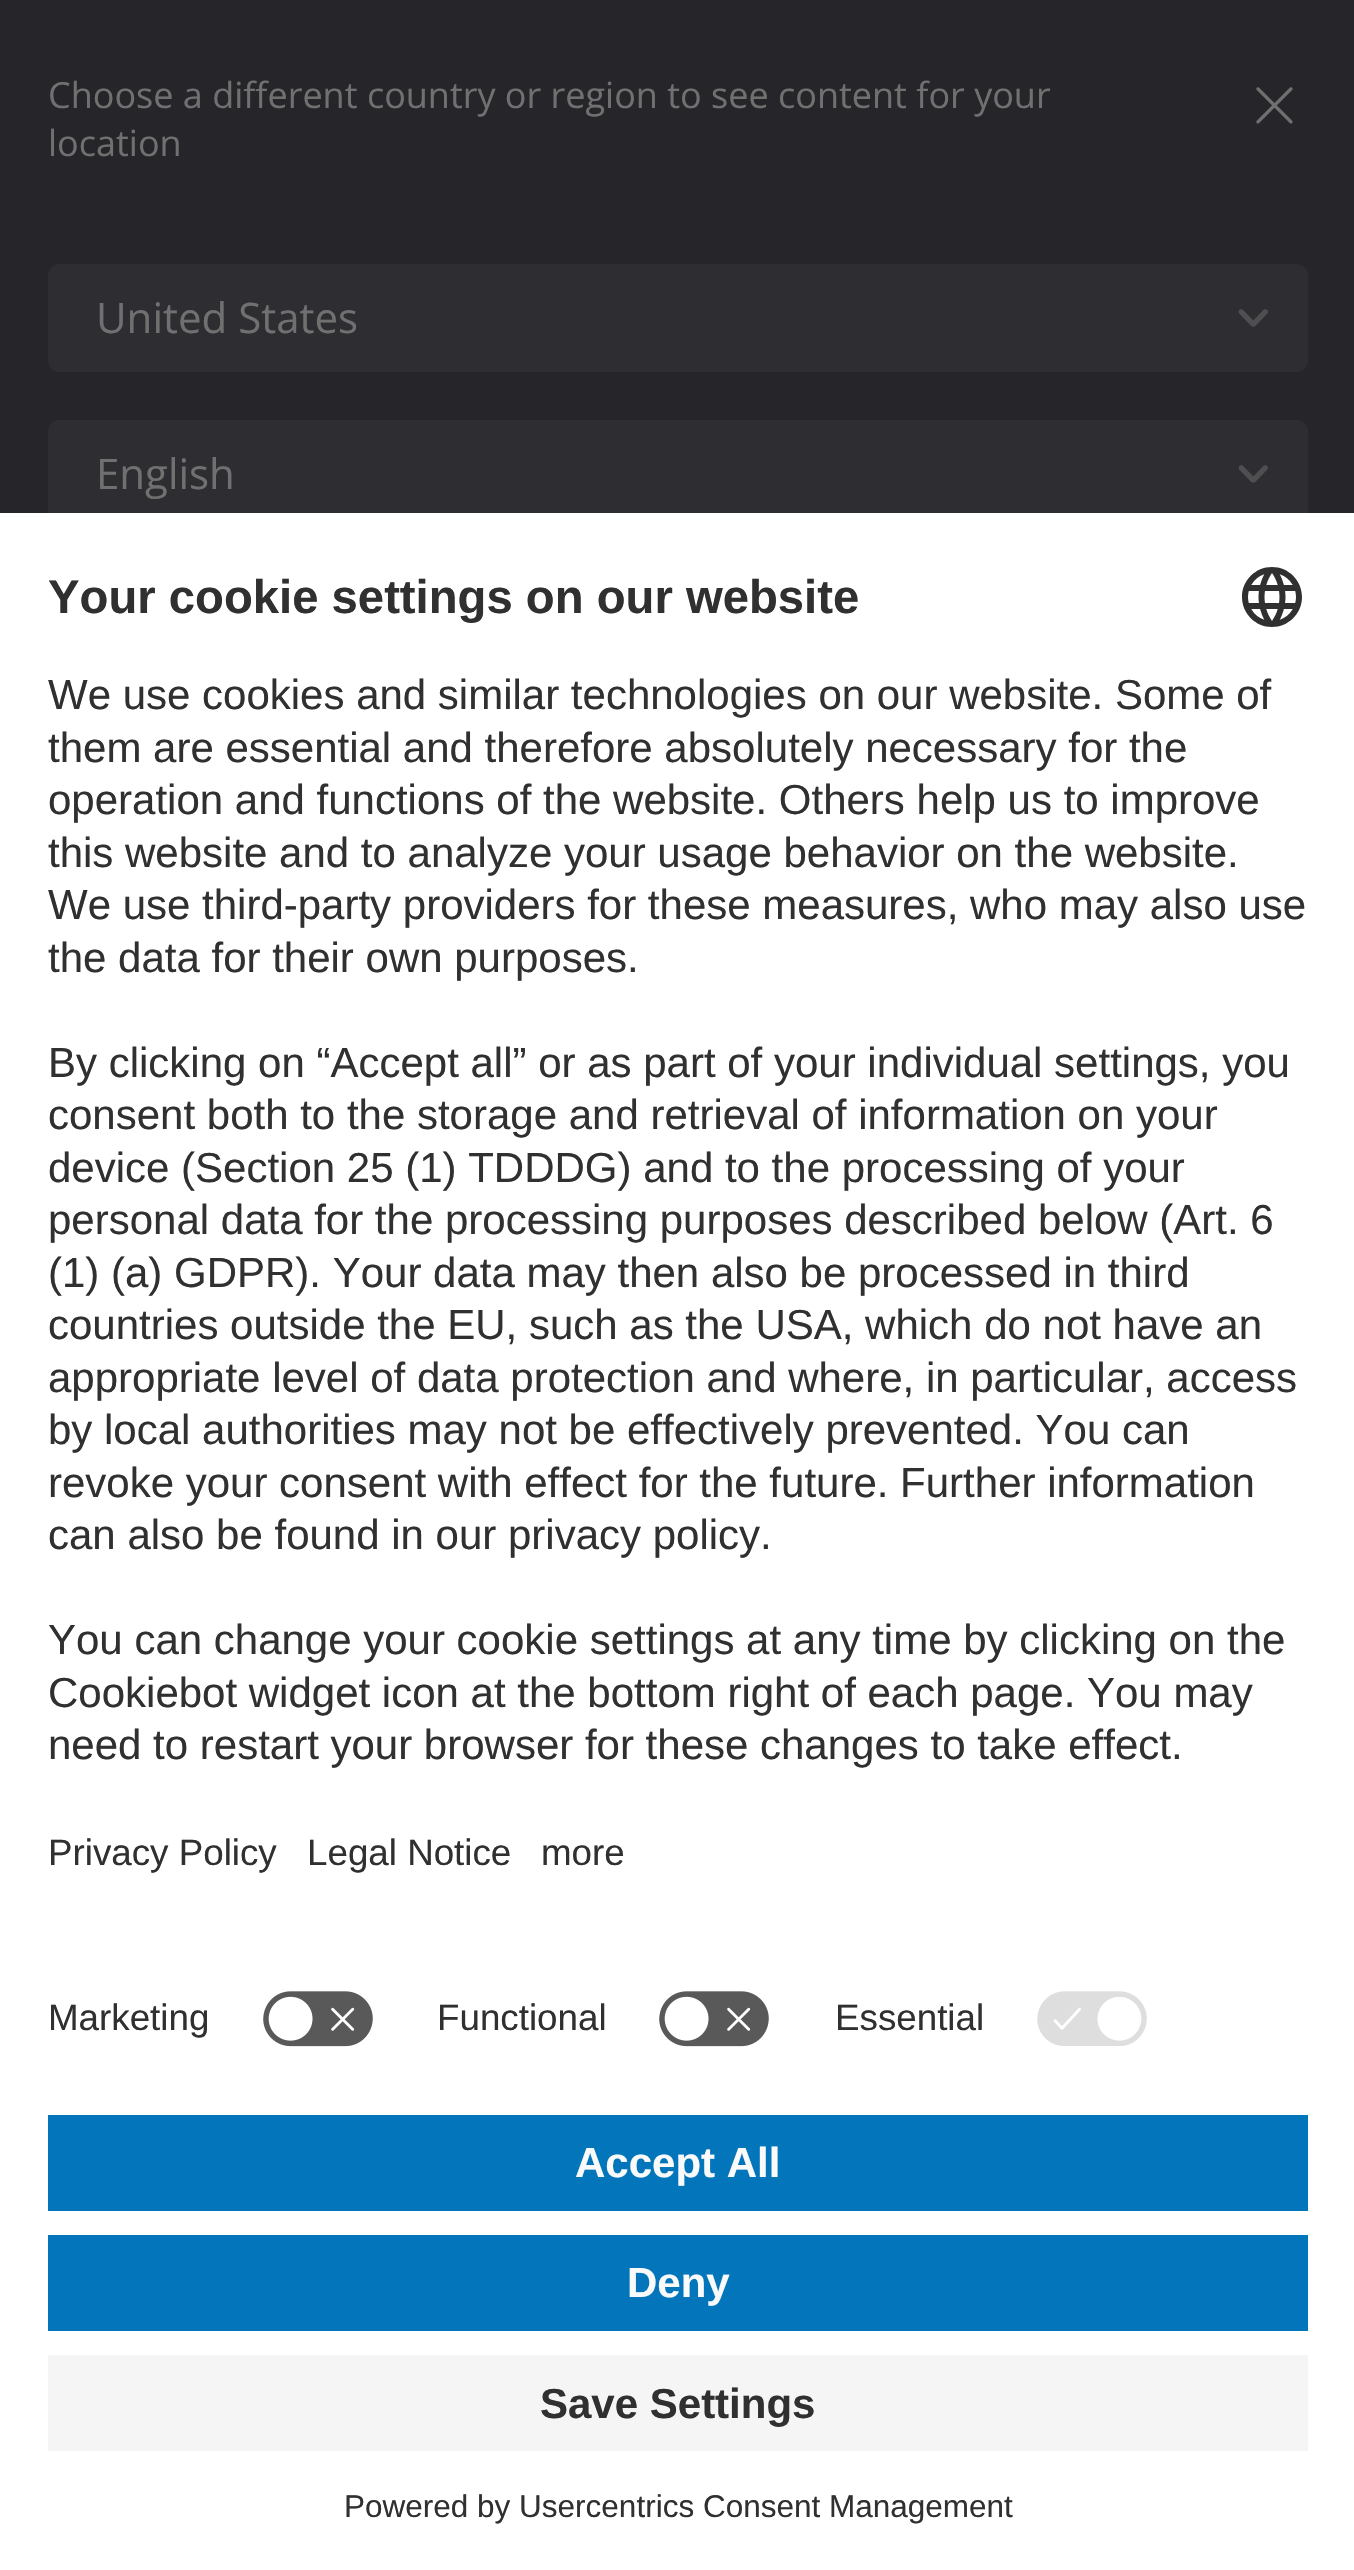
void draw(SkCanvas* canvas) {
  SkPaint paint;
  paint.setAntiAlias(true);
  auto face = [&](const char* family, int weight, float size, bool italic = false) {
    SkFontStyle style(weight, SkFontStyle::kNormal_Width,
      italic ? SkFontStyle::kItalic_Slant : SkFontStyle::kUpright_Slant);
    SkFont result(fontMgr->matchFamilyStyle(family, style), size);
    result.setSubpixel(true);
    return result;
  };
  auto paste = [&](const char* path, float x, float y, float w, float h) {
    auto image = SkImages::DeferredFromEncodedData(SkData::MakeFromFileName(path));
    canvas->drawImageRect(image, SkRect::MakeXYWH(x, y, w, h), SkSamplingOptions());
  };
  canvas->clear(0xff26262a);
  paint.setColor(0xff2e2d31);
  canvas->drawRoundRect(SkRect::MakeXYWH(48, 264, 1260, 108), 12, 12, paint);
  paste("img/1.png", 1238, 309, 30, 18);
  canvas->drawRoundRect(SkRect::MakeXYWH(48, 420, 1260, 108), 12, 12, paint);
  paste("img/1.png", 1238, 465, 30, 18);
  paste("img/2.png", 1256, 87, 37, 37);
  paint.setColor(0xffffffff);
  canvas->drawRect(SkRect::MakeXYWH(0, 513, 1354, 2057), paint);
  paste("img/3.png", 1242, 567, 60, 60);
  paste("img/4.png", 263, 1991, 110, 56);
  paste("img/4.png", 659, 1991, 110, 56);
  paste("img/5.png", 1037, 1991, 110, 55);
  {
    const struct { float x, y, w, h; SkColor color; } items[] = {
      {48, 2115, 1260, 96, 0xff0376bb},
      {48, 2235, 1260, 96, 0xff0376bb},
      {48, 2355, 1260, 96, 0xfff5f5f5},
    };
    for (auto [x, y, w, h, color] : items) {
      paint.setColor(color);
      canvas->drawRect(SkRect::MakeXYWH(x, y, w, h), paint);
    }
  }
  auto f0 = face("Open Sans", 400, 36);
  paint.setColor(0xff707070);
  canvas->drawString("Choose a different country or region to see content for your", 48, 108, f0, paint);
  canvas->drawString("location", 48, 156, f0, paint);
  auto f1 = face("Open Sans", 400, 42);
  canvas->drawString("United States", 96, 333, f1, paint);
  canvas->drawString("English", 96, 489, f1, paint);
  auto f2 = face("Liberation Sans", 700, 47.25f);
  paint.setColor(0xff303030);
  canvas->drawString("Your cookie settings on our website", 48, 613, f2, paint);
  auto f3 = face("Liberation Sans", 400, 42);
  {
    const struct { const char* s; float x, y; } items[] = {
      {"We use cookies and similar technologies on our website. Some of", 48, 709},
      {"them are essential and therefore absolutely necessary for the", 48, 762},
      {"operation and functions of the website. Others help us to improve", 48, 814},
      {"this website and to analyze your usage behavior on the website.", 48, 867},
      {"We use third-party providers for these measures, who may also use", 48, 919},
      {"the data for their own purposes.", 48, 972},
      {"By clicking on “Accept all” or as part of your individual settings, you", 48, 1077},
      {"consent both to the storage and retrieval of information on your", 48, 1129},
      {"device (Section 25 (1) TDDDG) and to the processing of your", 48, 1182},
      {"personal data for the processing purposes described below (Art. 6", 48, 1234},
      {"(1) (a) GDPR). Your data may then also be processed in third", 48, 1287},
      {"countries outside the EU, such as the USA, which do not have an", 48, 1339},
      {"appropriate level of data protection and where, in particular, access", 48, 1392},
      {"by local authorities may not be effectively prevented. You can", 48, 1444},
      {"revoke your consent with effect for the future. Further information", 48, 1497},
      {"can also be found in our privacy policy.", 48, 1549},
      {"You can change your cookie settings at any time by clicking on the", 48, 1654},
      {"Cookiebot widget icon at the bottom right of each page. You may", 48, 1707},
      {"need to restart your browser for these changes to take effect.", 48, 1759},
    };
    for (auto [s, x, y] : items) {
      canvas->drawString(s, x, y, f3, paint);
    }
  }
  auto f4 = face("Liberation Sans", 400, 36.75f);
  {
    const struct { const char* s; float x, y; } items[] = {
      {"Privacy Policy", 48, 1865},
      {"Legal Notice", 307, 1865},
      {"more", 541, 1865},
      {"Marketing", 48, 2030},
      {"Functional", 437, 2030},
      {"Essential", 835, 2030},
    };
    for (auto [s, x, y] : items) {
      canvas->drawString(s, x, y, f4, paint);
    }
  }
  auto f5 = face("Liberation Sans", 700, 42);
  paint.setColor(0xfffafafa);
  canvas->drawString("Accept All", 575, 2177, f5, paint);
  canvas->drawString("Deny", 627, 2297, f5, paint);
  paint.setColor(0xff303030);
  canvas->drawString("Save Settings", 540, 2418, f5, paint);
  auto f6 = face("Liberation Sans", 400, 31.5f);
  canvas->drawString("Powered by Usercentrics Consent Management", 344, 2517, f6, paint);
}
